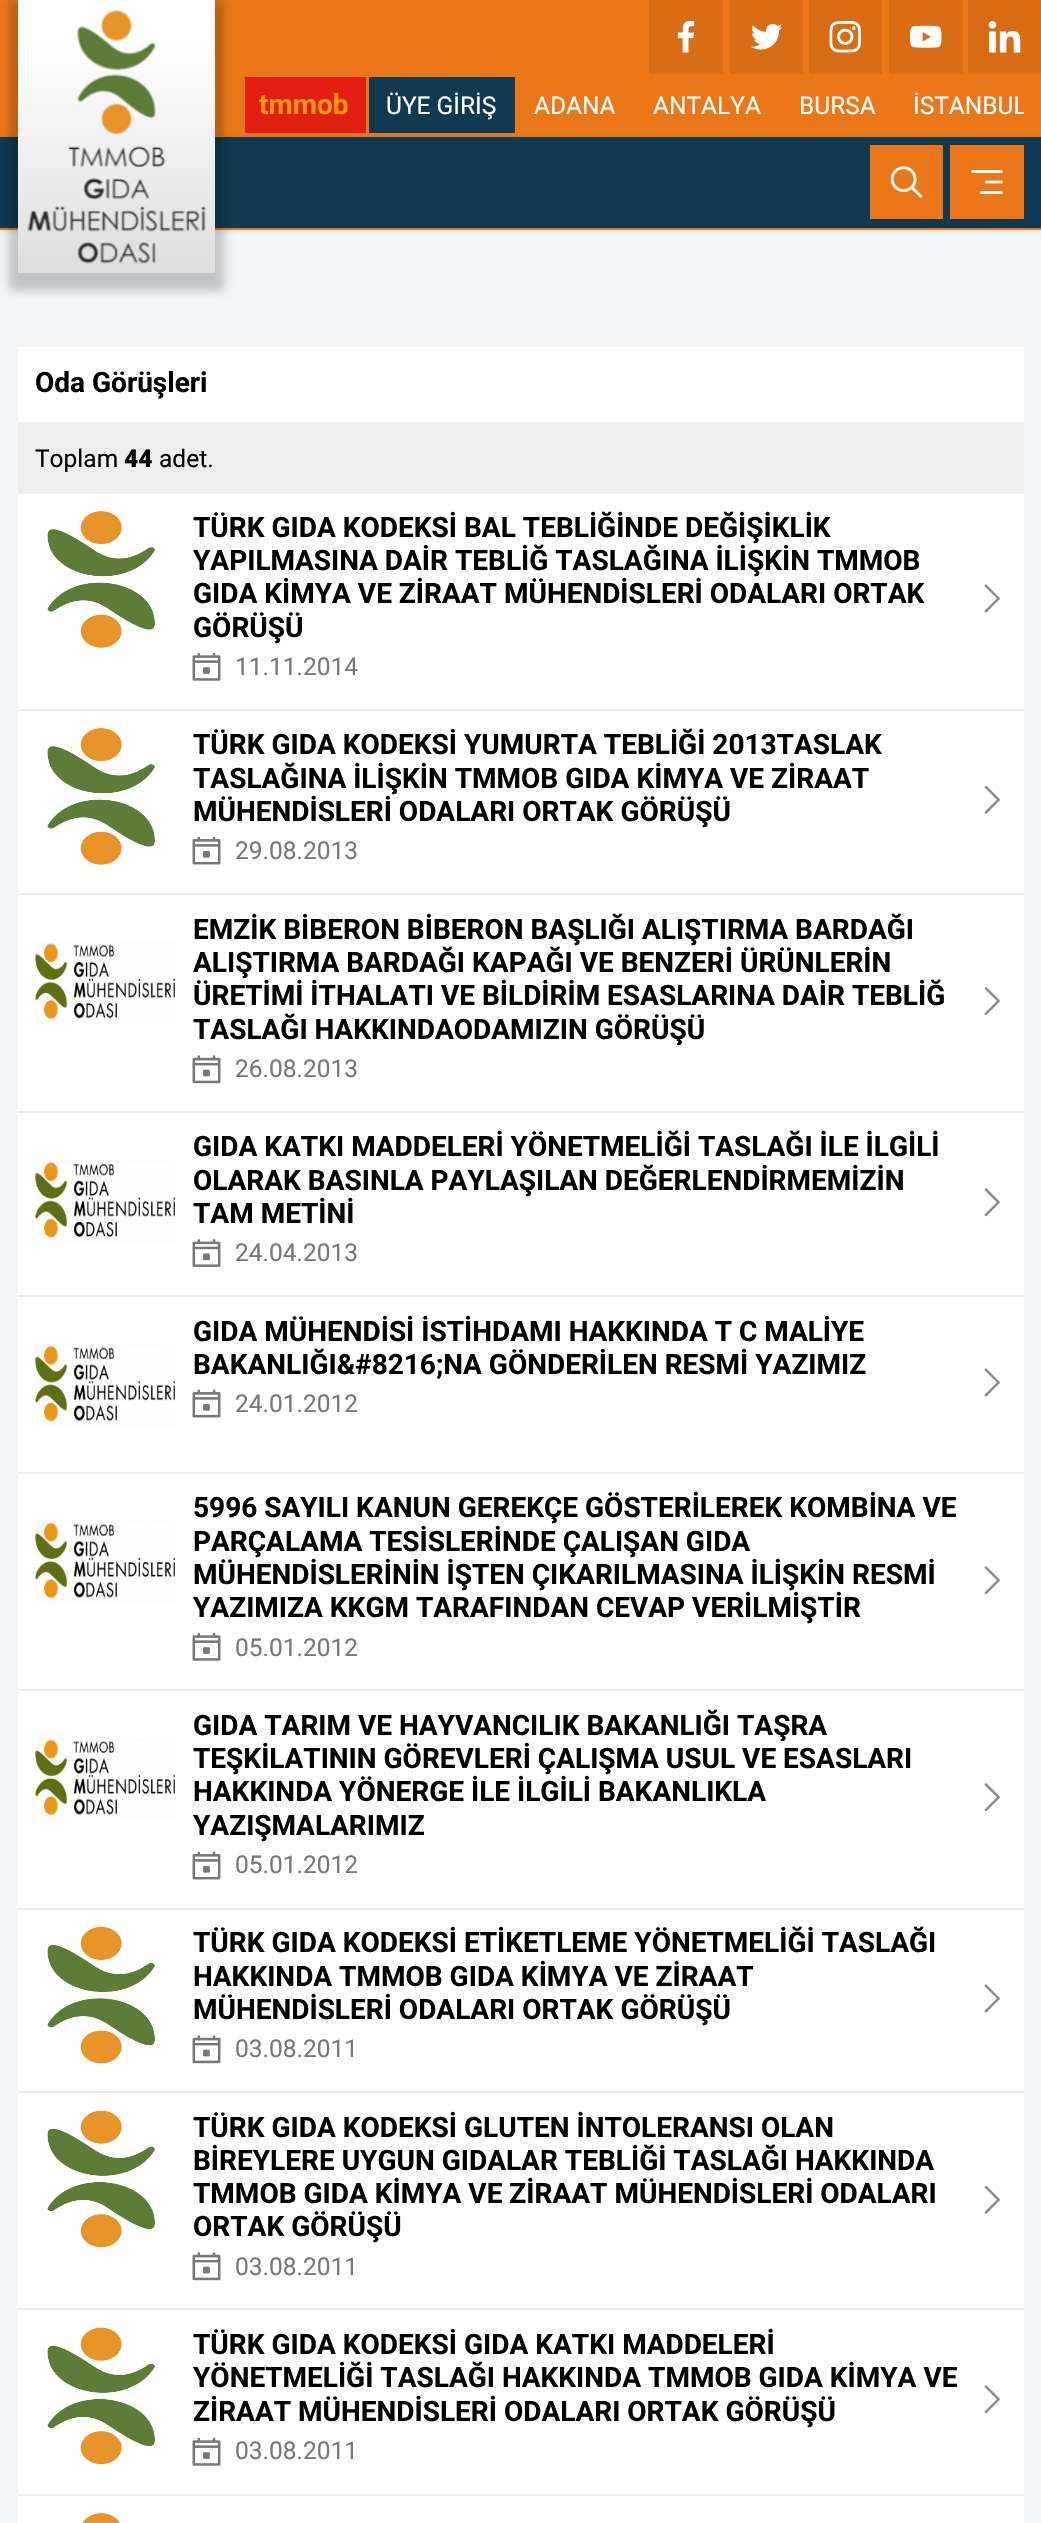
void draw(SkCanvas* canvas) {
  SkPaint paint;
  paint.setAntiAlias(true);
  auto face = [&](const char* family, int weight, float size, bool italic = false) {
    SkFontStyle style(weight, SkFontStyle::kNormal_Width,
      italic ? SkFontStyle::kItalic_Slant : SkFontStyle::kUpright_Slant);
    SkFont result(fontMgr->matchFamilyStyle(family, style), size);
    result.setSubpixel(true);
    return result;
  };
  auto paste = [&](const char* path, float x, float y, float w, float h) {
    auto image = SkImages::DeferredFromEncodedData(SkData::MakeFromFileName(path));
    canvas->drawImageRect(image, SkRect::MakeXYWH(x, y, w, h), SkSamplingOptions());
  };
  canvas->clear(0xfff3f5f7);
  {
    const struct { float x, y, w, h; SkColor color; } items[] = {
      {0, 0, 1041, 137, 0xffeb7718},
      {245, 77, 121, 56, 0xffe01e11},
      {369, 77, 146, 56, 0xff0f3a51},
    };
    for (auto [x, y, w, h, color] : items) {
      paint.setColor(color);
      canvas->drawRect(SkRect::MakeXYWH(x, y, w, h), paint);
    }
  }
  paint.setColor(0x1a000000);
  paint.setMaskFilter(SkMaskFilter::MakeBlur(kNormal_SkBlurStyle, 2.5f));
  canvas->drawRect(SkRect::MakeXYWH(2, 138, 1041, 93), paint);
  paint.setMaskFilter(nullptr);
  paint.setColor(0xffeb7718);
  canvas->drawRect(SkRect::MakeXYWH(0, 228, 1041, 2), paint);
  paint.setColor(0xff0f3a51);
  canvas->drawRect(SkRect::MakeXYWH(0, 137, 1041, 91), paint);
  paint.setColor(0x33000000);
  paint.setMaskFilter(SkMaskFilter::MakeBlur(kNormal_SkBlurStyle, 4.5f));
  canvas->drawRect(SkRect::MakeXYWH(9, 0, 215, 291), paint);
  paint.setMaskFilter(nullptr);
  {
    const SkColor colors[] = {0xffffffff, 0xffdedede};
    const float stops[] = {0.15f, 1};
    const SkPoint ends[] = {{116, 0}, {116, 273}};
    paint.setShader(SkGradientShader::MakeLinear(ends, colors, stops, 2, SkTileMode::kClamp));
    paint.setAlpha(255);
  }
  canvas->drawRect(SkRect::MakeXYWH(18, 0, 197, 273), paint);
  paste("img/1.png", 27, 9, 179, 255);
  paint.setShader(nullptr);
  paint.setColor(0xffeb7718);
  canvas->drawRect(SkRect::MakeXYWH(870, 145, 73, 74), paint);
  paste("img/2.png", 890, 166, 33, 32);
  canvas->drawRect(SkRect::MakeXYWH(950, 145, 74, 74), paint);
  paste("img/3.png", 971, 170, 32, 24);
  paint.setColor(0xffd86d16);
  canvas->drawRect(SkRect::MakeXYWH(649, 0, 74, 74), paint);
  paste("img/4.png", 677, 21, 18, 32);
  canvas->drawRect(SkRect::MakeXYWH(730, 0, 73, 74), paint);
  paste("img/5.png", 751, 23, 32, 27);
  canvas->drawRect(SkRect::MakeXYWH(809, 0, 73, 74), paint);
  paste("img/6.png", 829, 21, 32, 32);
  canvas->drawRect(SkRect::MakeXYWH(889, 0, 74, 74), paint);
  paste("img/7.png", 910, 25, 32, 23);
  canvas->drawRect(SkRect::MakeXYWH(968, 0, 73, 74), paint);
  paste("img/8.png", 988, 21, 33, 32);
  {
    const struct { float x, y, w, h; SkColor color; } items[] = {
      {18, 347, 1006, 2176, 0xffffffff},
      {18, 422, 1006, 2, 0xffececec},
      {18, 424, 1006, 70, 0xffededed},
      {18, 709, 1006, 2, 0xffececec},
    };
    for (auto [x, y, w, h, color] : items) {
      paint.setColor(color);
      canvas->drawRect(SkRect::MakeXYWH(x, y, w, h), paint);
    }
  }
  paste("img/9.png", 47, 511, 108, 137);
  paste("img/10.png", 984, 584, 16, 29);
  paste("img/11.png", 192, 652, 29, 29);
  canvas->drawRect(SkRect::MakeXYWH(18, 893, 1006, 2), paint);
  paste("img/9.png", 47, 728, 108, 137);
  paste("img/12.png", 984, 785, 16, 29);
  paste("img/13.png", 192, 836, 29, 29);
  canvas->drawRect(SkRect::MakeXYWH(18, 1111, 1006, 2), paint);
  paste("img/14.png", 35, 941, 140, 83);
  paste("img/15.png", 984, 987, 16, 28);
  paste("img/16.png", 192, 1055, 29, 29);
  canvas->drawRect(SkRect::MakeXYWH(18, 1295, 1006, 2), paint);
  paste("img/17.png", 35, 1160, 140, 83);
  paste("img/18.png", 984, 1188, 16, 29);
  paste("img/19.png", 192, 1239, 29, 28);
  canvas->drawRect(SkRect::MakeXYWH(18, 1472, 1006, 2), paint);
  paste("img/20.png", 35, 1344, 140, 82);
  paste("img/10.png", 984, 1368, 16, 29);
  paste("img/13.png", 192, 1389, 29, 29);
  canvas->drawRect(SkRect::MakeXYWH(18, 1689, 1006, 2), paint);
  paste("img/21.png", 35, 1520, 140, 83);
  paste("img/18.png", 984, 1566, 16, 29);
  paste("img/11.png", 192, 1632, 29, 29);
  canvas->drawRect(SkRect::MakeXYWH(18, 1908, 1006, 2), paint);
  paste("img/21.png", 35, 1737, 140, 83);
  paste("img/18.png", 984, 1783, 16, 29);
  paste("img/13.png", 192, 1851, 29, 29);
  canvas->drawRect(SkRect::MakeXYWH(18, 2091, 1006, 2), paint);
  paste("img/22.png", 47, 1926, 108, 138);
  paste("img/10.png", 984, 1984, 16, 29);
  paste("img/16.png", 192, 2035, 29, 29);
  canvas->drawRect(SkRect::MakeXYWH(18, 2308, 1006, 2), paint);
  paste("img/23.png", 47, 2110, 108, 138);
  paste("img/12.png", 984, 2185, 16, 29);
  paste("img/16.png", 192, 2252, 29, 29);
  canvas->drawRect(SkRect::MakeXYWH(18, 2494, 1006, 2), paint);
  paste("img/24.png", 47, 2327, 108, 138);
  paste("img/18.png", 984, 2385, 16, 29);
  paste("img/11.png", 192, 2437, 29, 29);
  paste("img/25.png", 82, 2513, 38, 10);
  auto f0 = face("Roboto", 700, 28);
  paint.setColor(0xfffa9a06);
  canvas->drawString("tmmob", 259, 114, f0, paint);
  auto f1 = face("Roboto", 400, 24.5f);
  paint.setColor(0xffffffff);
  {
    const struct { const char* s; float x, y; } items[] = {
      {"ÜYE GİRİŞ", 386, 114},
      {"ADANA", 534, 114},
      {"ANTALYA", 653, 114},
      {"BURSA", 799, 114},
    };
    for (auto [s, x, y] : items) {
      canvas->drawString(s, x, y, f1, paint);
    }
  }
  canvas->save();
  canvas->clipRect(SkRect::MakeXYWH(245, 74, 779, 63));
  canvas->drawString("İSTANBUL", 913, 114, f1, paint);
  canvas->restore();
  paint.setColor(0xff000000);
  canvas->drawString("Oda Görüşleri", 35, 392, f0, paint);
  canvas->drawString("Toplam", 35, 467, f1, paint);
  auto f2 = face("Roboto", 900, 24.5f);
  canvas->drawString("44", 124, 467, f2, paint);
  canvas->drawString("adet.", 159, 467, f1, paint);
  {
    const struct { const char* s; float x, y; } items[] = {
      {"TÜRK GIDA KODEKSİ BAL TEBLİĞİNDE DEĞİŞİKLİK", 193, 537},
      {"YAPILMASINA DAİR TEBLİĞ TASLAĞINA İLİŞKİN TMMOB", 193, 570},
      {"GIDA KİMYA VE ZİRAAT MÜHENDİSLERİ ODALARI ORTAK", 193, 603},
      {"GÖRÜŞÜ", 193, 637},
    };
    for (auto [s, x, y] : items) {
      canvas->drawString(s, x, y, f0, paint);
    }
  }
  paint.setColor(0xff777777);
  canvas->drawString("11.11.2014", 235, 675, f1, paint);
  paint.setColor(0xff000000);
  {
    const struct { const char* s; float x, y; } items[] = {
      {"TÜRK GIDA KODEKSİ YUMURTA TEBLİĞİ 2013TASLAK", 193, 754},
      {"TASLAĞINA İLİŞKİN TMMOB GIDA KİMYA VE ZİRAAT", 193, 788},
      {"MÜHENDİSLERİ ODALARI ORTAK GÖRÜŞÜ", 193, 821},
    };
    for (auto [s, x, y] : items) {
      canvas->drawString(s, x, y, f0, paint);
    }
  }
  paint.setColor(0xff777777);
  canvas->drawString("29.08.2013", 235, 859, f1, paint);
  paint.setColor(0xff000000);
  {
    const struct { const char* s; float x, y; } items[] = {
      {"EMZİK BİBERON BİBERON BAŞLIĞI ALIŞTIRMA BARDAĞI", 193, 939},
      {"ALIŞTIRMA BARDAĞI KAPAĞI VE BENZERİ ÜRÜNLERİN", 193, 972},
      {"ÜRETİMİ İTHALATI VE BİLDİRİM ESASLARINA DAİR TEBLİĞ", 193, 1005},
      {"TASLAĞI HAKKINDAODAMIZIN GÖRÜŞÜ", 193, 1039},
    };
    for (auto [s, x, y] : items) {
      canvas->drawString(s, x, y, f0, paint);
    }
  }
  paint.setColor(0xff777777);
  canvas->drawString("26.08.2013", 235, 1077, f1, paint);
  paint.setColor(0xff000000);
  {
    const struct { const char* s; float x, y; } items[] = {
      {"GIDA KATKI MADDELERİ YÖNETMELİĞİ TASLAĞI İLE İLGİLİ", 193, 1156},
      {"OLARAK BASINLA PAYLAŞILAN DEĞERLENDİRMEMİZİN", 193, 1190},
      {"TAM METİNİ", 193, 1223},
    };
    for (auto [s, x, y] : items) {
      canvas->drawString(s, x, y, f0, paint);
    }
  }
  paint.setColor(0xff777777);
  canvas->drawString("24.04.2013", 235, 1261, f1, paint);
  paint.setColor(0xff000000);
  canvas->drawString("GIDA MÜHENDİSİ İSTİHDAMI HAKKINDA T C MALİYE", 193, 1341, f0, paint);
  canvas->drawString("BAKANLIĞI&#8216;NA GÖNDERİLEN RESMİ YAZIMIZ", 193, 1374, f0, paint);
  paint.setColor(0xff777777);
  canvas->drawString("24.01.2012", 235, 1412, f1, paint);
  paint.setColor(0xff000000);
  {
    const struct { const char* s; float x, y; } items[] = {
      {"5996 SAYILI KANUN GEREKÇE GÖSTERİLEREK KOMBİNA VE", 193, 1517},
      {"PARÇALAMA TESİSLERİNDE ÇALIŞAN GIDA", 193, 1551},
      {"MÜHENDİSLERİNİN İŞTEN ÇIKARILMASINA İLİŞKİN RESMİ", 193, 1584},
      {"YAZIMIZA KKGM TARAFINDAN CEVAP VERİLMİŞTİR", 193, 1617},
    };
    for (auto [s, x, y] : items) {
      canvas->drawString(s, x, y, f0, paint);
    }
  }
  paint.setColor(0xff777777);
  canvas->drawString("05.01.2012", 235, 1656, f1, paint);
  paint.setColor(0xff000000);
  {
    const struct { const char* s; float x, y; } items[] = {
      {"GIDA TARIM VE HAYVANCILIK BAKANLIĞI TAŞRA", 193, 1735},
      {"TEŞKİLATININ GÖREVLERİ ÇALIŞMA USUL VE ESASLARI", 193, 1768},
      {"HAKKINDA YÖNERGE İLE İLGİLİ BAKANLIKLA", 193, 1801},
      {"YAZIŞMALARIMIZ", 193, 1835},
    };
    for (auto [s, x, y] : items) {
      canvas->drawString(s, x, y, f0, paint);
    }
  }
  paint.setColor(0xff777777);
  canvas->drawString("05.01.2012", 235, 1873, f1, paint);
  paint.setColor(0xff000000);
  {
    const struct { const char* s; float x, y; } items[] = {
      {"TÜRK GIDA KODEKSİ ETİKETLEME YÖNETMELİĞİ TASLAĞI", 193, 1952},
      {"HAKKINDA TMMOB GIDA KİMYA VE ZİRAAT", 193, 1986},
      {"MÜHENDİSLERİ ODALARI ORTAK GÖRÜŞÜ", 193, 2019},
    };
    for (auto [s, x, y] : items) {
      canvas->drawString(s, x, y, f0, paint);
    }
  }
  paint.setColor(0xff777777);
  canvas->drawString("03.08.2011", 235, 2057, f1, paint);
  paint.setColor(0xff000000);
  {
    const struct { const char* s; float x, y; } items[] = {
      {"TÜRK GIDA KODEKSİ GLUTEN İNTOLERANSI OLAN", 193, 2137},
      {"BİREYLERE UYGUN GIDALAR TEBLİĞİ TASLAĞI HAKKINDA", 193, 2170},
      {"TMMOB GIDA KİMYA VE ZİRAAT MÜHENDİSLERİ ODALARI", 193, 2203},
      {"ORTAK GÖRÜŞÜ", 193, 2236},
    };
    for (auto [s, x, y] : items) {
      canvas->drawString(s, x, y, f0, paint);
    }
  }
  paint.setColor(0xff777777);
  canvas->drawString("03.08.2011", 235, 2275, f1, paint);
  paint.setColor(0xff000000);
  {
    const struct { const char* s; float x, y; } items[] = {
      {"TÜRK GIDA KODEKSİ GIDA KATKI MADDELERİ", 193, 2354},
      {"YÖNETMELİĞİ TASLAĞI HAKKINDA TMMOB GIDA KİMYA VE", 193, 2387},
      {"ZİRAAT MÜHENDİSLERİ ODALARI ORTAK GÖRÜŞÜ", 193, 2421},
    };
    for (auto [s, x, y] : items) {
      canvas->drawString(s, x, y, f0, paint);
    }
  }
  paint.setColor(0xff777777);
  canvas->drawString("03.08.2011", 235, 2459, f1, paint);
}
